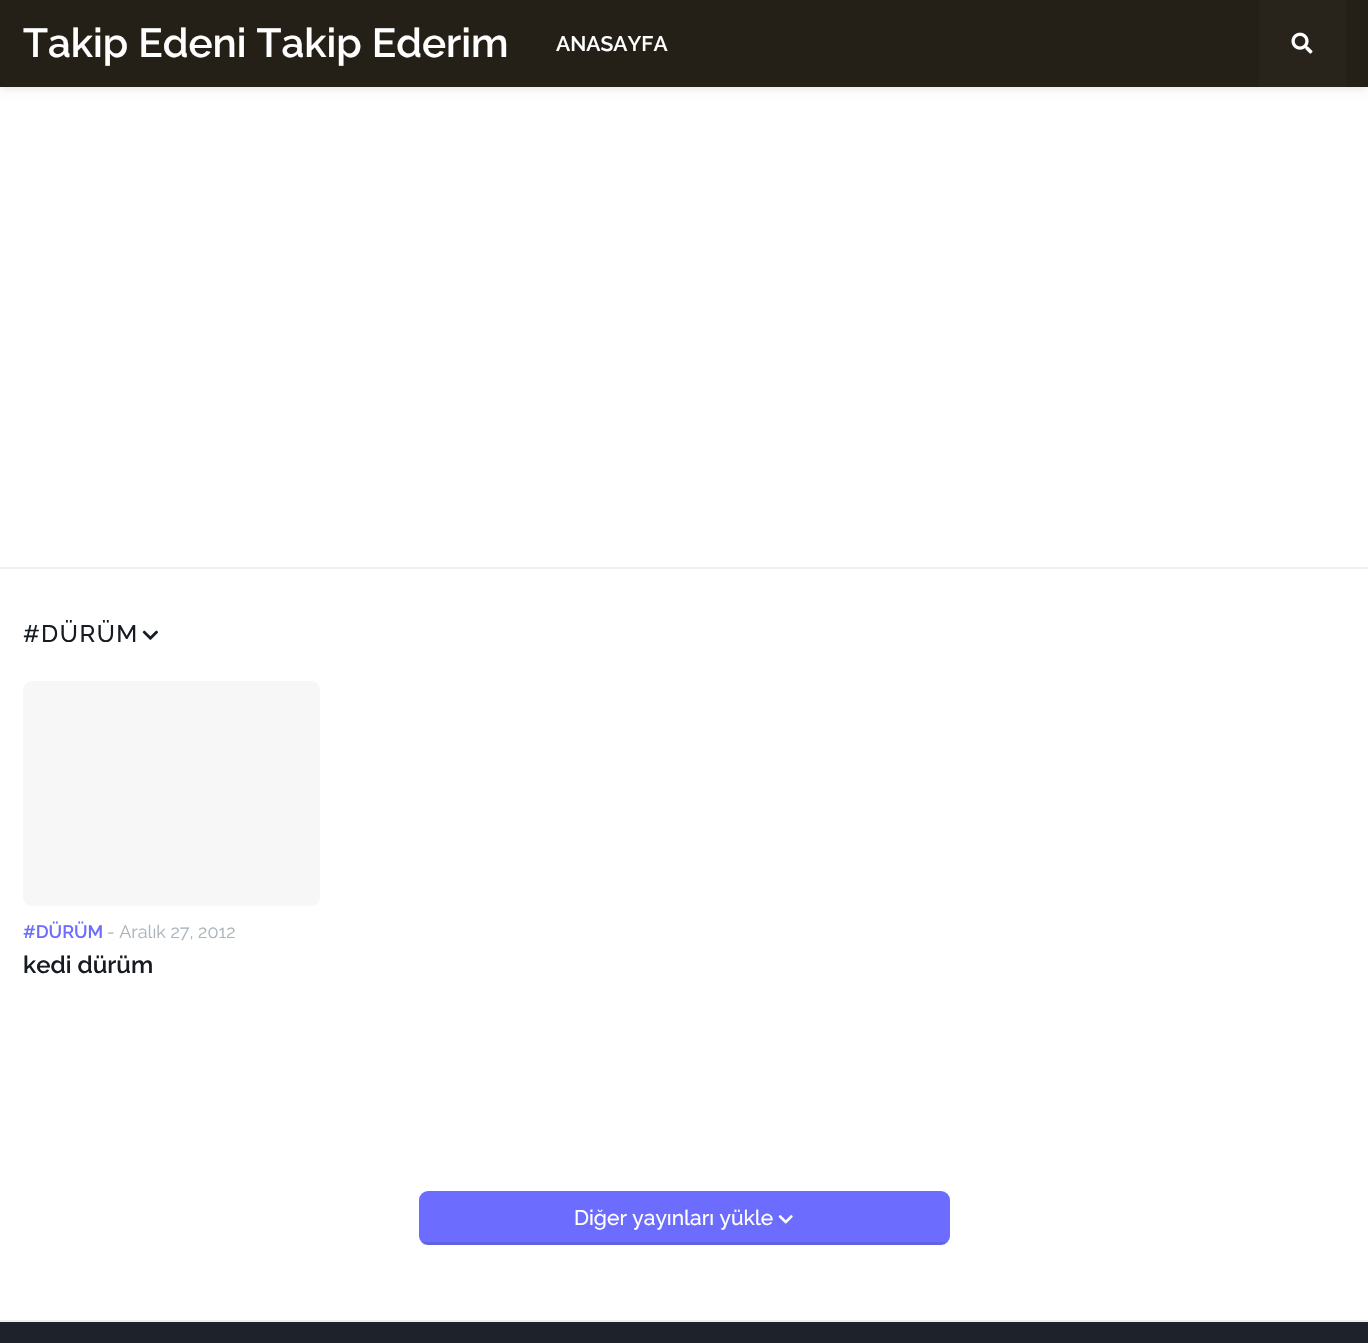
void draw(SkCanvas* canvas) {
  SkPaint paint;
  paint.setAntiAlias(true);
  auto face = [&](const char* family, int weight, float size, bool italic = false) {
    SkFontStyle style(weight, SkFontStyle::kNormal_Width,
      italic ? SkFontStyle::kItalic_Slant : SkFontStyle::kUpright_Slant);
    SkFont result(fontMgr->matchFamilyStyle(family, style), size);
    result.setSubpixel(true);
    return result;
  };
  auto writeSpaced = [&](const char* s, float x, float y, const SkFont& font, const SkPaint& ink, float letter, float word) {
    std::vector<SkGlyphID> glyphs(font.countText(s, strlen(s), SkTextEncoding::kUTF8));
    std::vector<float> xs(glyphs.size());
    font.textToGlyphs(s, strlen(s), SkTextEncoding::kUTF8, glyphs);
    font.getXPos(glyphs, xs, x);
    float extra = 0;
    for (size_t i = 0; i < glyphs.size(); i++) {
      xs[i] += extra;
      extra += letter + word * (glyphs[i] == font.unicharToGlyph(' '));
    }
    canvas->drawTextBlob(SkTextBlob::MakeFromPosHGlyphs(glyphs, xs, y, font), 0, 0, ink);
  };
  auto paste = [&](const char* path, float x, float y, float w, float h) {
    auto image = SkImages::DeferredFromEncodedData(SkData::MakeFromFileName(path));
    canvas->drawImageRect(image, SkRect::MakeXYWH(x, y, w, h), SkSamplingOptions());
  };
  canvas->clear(0xffffffff);
  paint.setColor(0x1a000000);
  paint.setMaskFilter(SkMaskFilter::MakeBlur(kNormal_SkBlurStyle, 4));
  canvas->drawRect(SkRect::MakeXYWH(0, 2, 1368, 87), paint);
  paint.setMaskFilter(nullptr);
  paint.setColor(0xff241f17);
  canvas->drawRect(SkRect::MakeXYWH(0, 0, 1368, 87), paint);
  paint.setColor(0xff28231b);
  canvas->drawRect(SkRect::MakeXYWH(1259, 0, 87, 87), paint);
  paste("img/1.png", 1291, 32, 22, 22);
  paint.setColor(0xfff0f0f0);
  canvas->drawRect(SkRect::MakeXYWH(0, 567, 1368, 2), paint);
  paste("img/2.png", 142, 630, 16, 10);
  paint.setColor(0xfff7f7f7);
  canvas->drawRoundRect(SkRect::MakeXYWH(23, 681, 297, 225), 9, 9, paint);
  paint.setColor(0xff6c6cfe);
  canvas->drawRoundRect(SkRect::MakeXYWH(419, 1191, 531, 54), 9, 9, paint);
  paint.setColor(0x1a000000);
  canvas->drawRect(SkRect::MakeXYWH(423, 1242, 522, 3), paint);
  paste("img/3.png", 778, 1215, 15, 9);
  paint.setColor(0xfff0f0f0);
  canvas->drawRect(SkRect::MakeXYWH(0, 1320, 1368, 2), paint);
  paint.setColor(0xff1e232b);
  canvas->drawRect(SkRect::MakeXYWH(0, 1322, 1368, 21), paint);
  auto f0 = face("Raleway", 600, 40.5f);
  paint.setColor(0xffffffff);
  canvas->drawString("Takip Edeni Takip Ederim", 23, 57, f0, paint);
  auto f1 = face("Raleway", 600, 21);
  canvas->drawString("ANASAYFA", 556, 51, f1, paint);
  auto f2 = face("Raleway", 500, 24);
  paint.setColor(0xff171c24);
  writeSpaced("#DÜRÜM", 23, 642, f2, paint, 1.5f, 0);
  auto f3 = face("Raleway", 600, 18);
  paint.setColor(0xff6c6cfe);
  canvas->drawString("#DÜRÜM", 23, 938, f3, paint);
  auto f4 = face("Raleway", 400, 18);
  paint.setColor(0xffa9b4ba);
  canvas->drawString("- Aralık 27, 2012", 107, 938, f4, paint);
  auto f5 = face("Raleway", 600, 24);
  paint.setColor(0xff171c24);
  canvas->drawString("kedi dürüm", 23, 973, f5, paint);
  auto f6 = face("Raleway", 500, 21);
  paint.setColor(0xffffffff);
  canvas->drawString("Diğer yayınları yükle", 574, 1225, f6, paint);
}
